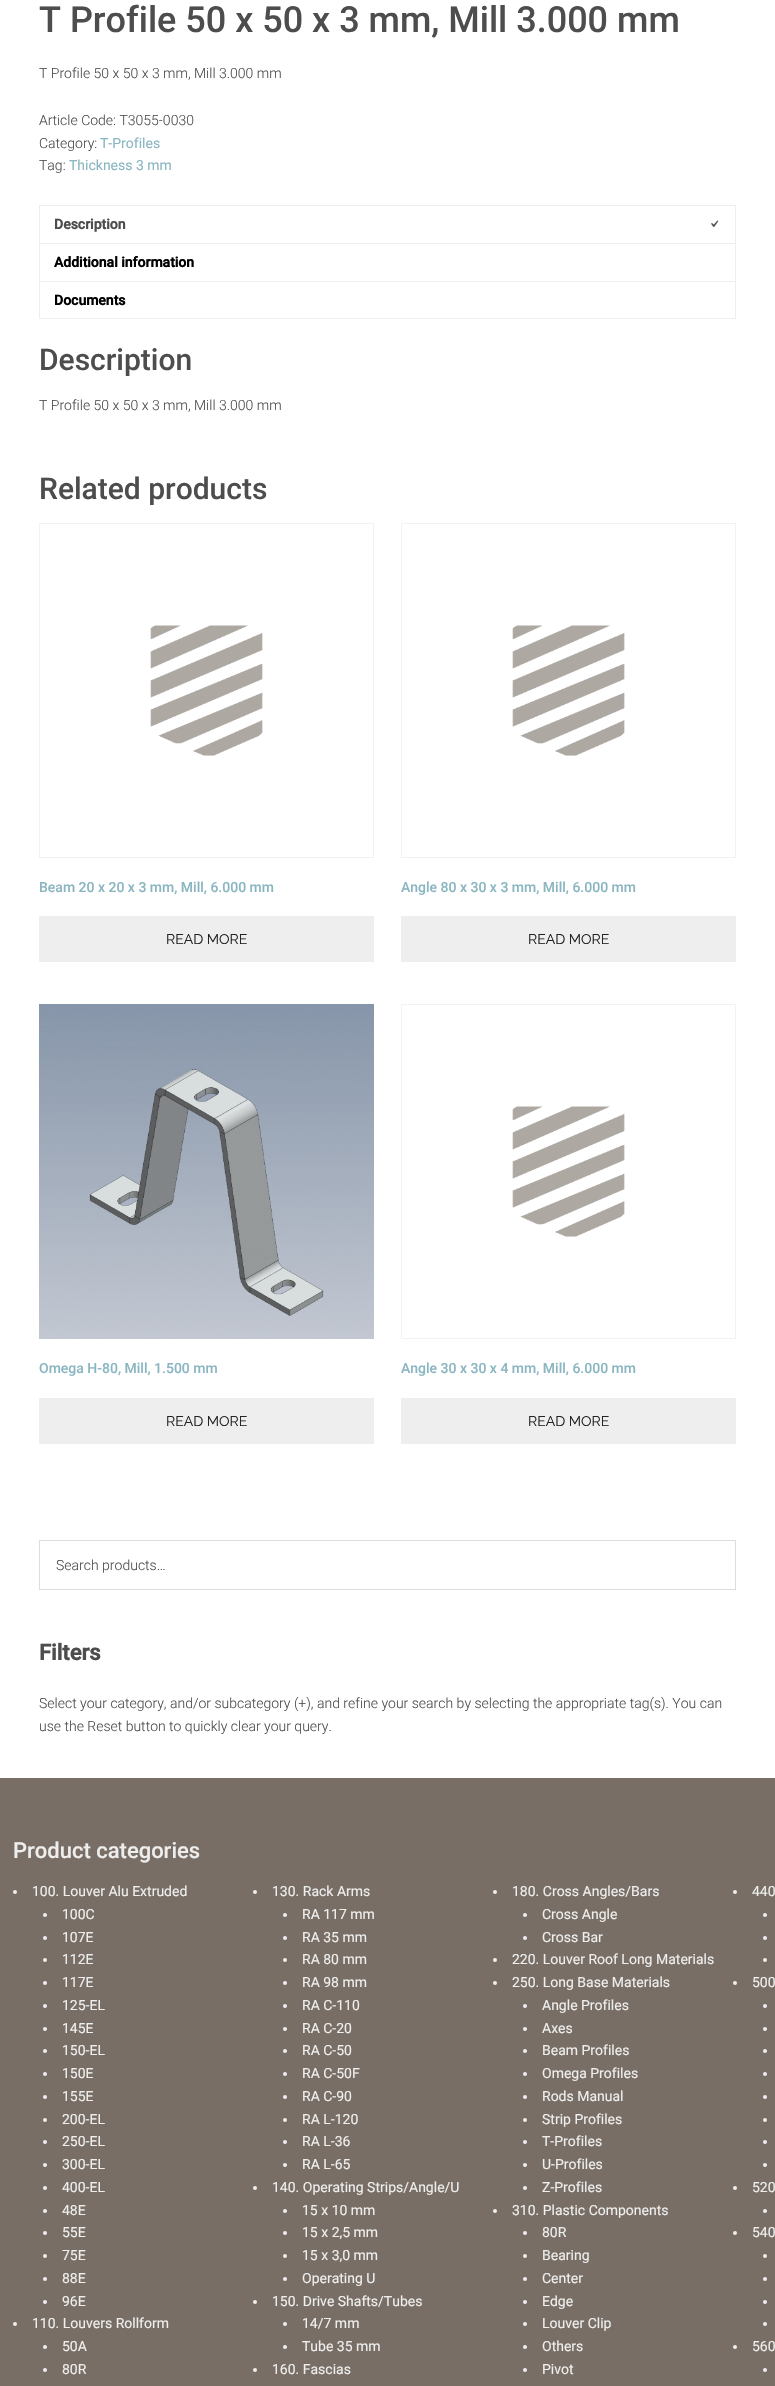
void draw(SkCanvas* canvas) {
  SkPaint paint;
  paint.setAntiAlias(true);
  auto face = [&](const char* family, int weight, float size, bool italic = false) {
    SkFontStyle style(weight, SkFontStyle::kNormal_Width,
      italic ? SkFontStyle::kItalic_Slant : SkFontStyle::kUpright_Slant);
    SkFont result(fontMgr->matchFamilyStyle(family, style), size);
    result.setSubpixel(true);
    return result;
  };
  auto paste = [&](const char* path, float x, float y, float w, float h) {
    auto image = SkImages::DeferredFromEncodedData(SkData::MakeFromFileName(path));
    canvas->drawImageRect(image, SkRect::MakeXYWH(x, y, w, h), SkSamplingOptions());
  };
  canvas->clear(0xffffffff);
  {
    const struct { float x, y, w, h; SkColor color; } items[] = {
      {39, 205, 697, 1, 0xffeeeeee},
      {735, 205, 1, 38, 0xffeeeeee},
      {39, 205, 1, 38, 0xffeeeeee},
    };
    for (auto [x, y, w, h, color] : items) {
      paint.setColor(color);
      canvas->drawRect(SkRect::MakeXYWH(x, y, w, h), paint);
    }
  }
  paste("img/1.png", 711, 220, 8, 7);
  {
    const struct { float x, y, w, h; SkColor color; } items[] = {
      {39, 243, 697, 1, 0xffeeeeee},
      {735, 243, 1, 38, 0xffeeeeee},
      {39, 243, 1, 38, 0xffeeeeee},
    };
    for (auto [x, y, w, h, color] : items) {
      paint.setColor(color);
      canvas->drawRect(SkRect::MakeXYWH(x, y, w, h), paint);
    }
  }
  paint.setStroke(true);
  paint.setStrokeWidth(1);
  canvas->drawRect(SkRect::MakeXYWH(39.5f, 281.5f, 696, 37), paint);
  paint.setColor(0xfff2f2f2);
  canvas->drawRect(SkRect::MakeXYWH(39.5f, 523.5f, 334, 334), paint);
  paste("img/2.png", 150, 625, 113, 131);
  paint.setStroke(false);
  paint.setColor(0xffeeeeee);
  canvas->drawRect(SkRect::MakeXYWH(39, 916, 335, 46), paint);
  paint.setStroke(true);
  paint.setColor(0xfff2f2f2);
  canvas->drawRect(SkRect::MakeXYWH(401.5f, 523.5f, 334, 334), paint);
  paste("img/2.png", 512, 625, 113, 131);
  paint.setStroke(false);
  paint.setColor(0xffeeeeee);
  canvas->drawRect(SkRect::MakeXYWH(401, 916, 335, 46), paint);
  paste("img/3.png", 39, 1004, 335, 335);
  canvas->drawRect(SkRect::MakeXYWH(39, 1398, 335, 46), paint);
  paint.setStroke(true);
  paint.setColor(0xfff2f2f2);
  canvas->drawRect(SkRect::MakeXYWH(401.5f, 1004.5f, 334, 334), paint);
  paste("img/2.png", 512, 1106, 113, 131);
  paint.setStroke(false);
  paint.setColor(0xffeeeeee);
  canvas->drawRect(SkRect::MakeXYWH(401, 1398, 335, 46), paint);
  paint.setStroke(true);
  paint.setColor(0xffdddddd);
  canvas->drawRect(SkRect::MakeXYWH(39.5f, 1540.5f, 696, 49), paint);
  paint.setStroke(false);
  paint.setColor(0xff786e65);
  canvas->drawRect(SkRect::MakeXYWH(0, 1778, 775, 608), paint);
  paint.setColor(0xffeeeeee);
  canvas->drawCircle(15, 1892, 2, paint);
  canvas->drawCircle(45, 1915, 2, paint);
  canvas->drawCircle(45, 1938, 2, paint);
  canvas->drawCircle(45, 1960, 2, paint);
  canvas->drawCircle(45, 1983, 2, paint);
  canvas->drawCircle(45, 2006, 2, paint);
  canvas->drawCircle(45, 2029, 2, paint);
  canvas->drawCircle(45, 2051, 2, paint);
  canvas->drawCircle(45, 2074, 2, paint);
  canvas->drawCircle(45, 2097, 2, paint);
  canvas->drawCircle(45, 2120, 2, paint);
  canvas->drawCircle(45, 2142, 2, paint);
  canvas->drawCircle(45, 2165, 2, paint);
  canvas->drawCircle(45, 2188, 2, paint);
  canvas->drawCircle(45, 2211, 2, paint);
  canvas->drawCircle(45, 2233, 2, paint);
  canvas->drawCircle(45, 2256, 2, paint);
  canvas->drawCircle(45, 2279, 2, paint);
  canvas->drawCircle(45, 2302, 2, paint);
  canvas->drawCircle(255, 1892, 2, paint);
  canvas->drawCircle(285, 1915, 2, paint);
  canvas->drawCircle(285, 1938, 2, paint);
  canvas->drawCircle(285, 1960, 2, paint);
  canvas->drawCircle(285, 1983, 2, paint);
  canvas->drawCircle(285, 2006, 2, paint);
  canvas->drawCircle(285, 2029, 2, paint);
  canvas->drawCircle(285, 2051, 2, paint);
  canvas->drawCircle(285, 2074, 2, paint);
  canvas->drawCircle(285, 2097, 2, paint);
  canvas->drawCircle(285, 2120, 2, paint);
  canvas->drawCircle(285, 2142, 2, paint);
  canvas->drawCircle(285, 2165, 2, paint);
  canvas->drawCircle(495, 1892, 2, paint);
  canvas->drawCircle(525, 1915, 2, paint);
  canvas->drawCircle(525, 1938, 2, paint);
  canvas->drawCircle(735, 1892, 2, paint);
  canvas->drawCircle(765, 1915, 2, paint);
  canvas->drawCircle(765, 1938, 2, paint);
  canvas->drawCircle(765, 1960, 2, paint);
  canvas->drawCircle(495, 1960, 2, paint);
  canvas->drawCircle(495, 1983, 2, paint);
  canvas->drawCircle(525, 2006, 2, paint);
  canvas->drawCircle(525, 2029, 2, paint);
  canvas->drawCircle(525, 2051, 2, paint);
  canvas->drawCircle(525, 2074, 2, paint);
  canvas->drawCircle(525, 2097, 2, paint);
  canvas->drawCircle(525, 2120, 2, paint);
  canvas->drawCircle(525, 2142, 2, paint);
  canvas->drawCircle(525, 2165, 2, paint);
  canvas->drawCircle(525, 2188, 2, paint);
  canvas->drawCircle(735, 1983, 2, paint);
  canvas->drawCircle(765, 2006, 2, paint);
  canvas->drawCircle(765, 2029, 2, paint);
  canvas->drawCircle(765, 2051, 2, paint);
  canvas->drawCircle(765, 2074, 2, paint);
  canvas->drawCircle(765, 2097, 2, paint);
  canvas->drawCircle(765, 2120, 2, paint);
  canvas->drawCircle(765, 2142, 2, paint);
  canvas->drawCircle(765, 2165, 2, paint);
  canvas->drawCircle(255, 2188, 2, paint);
  canvas->drawCircle(285, 2211, 2, paint);
  canvas->drawCircle(285, 2233, 2, paint);
  canvas->drawCircle(285, 2256, 2, paint);
  canvas->drawCircle(285, 2279, 2, paint);
  canvas->drawCircle(735, 2188, 2, paint);
  canvas->drawCircle(765, 2211, 2, paint);
  canvas->drawCircle(495, 2211, 2, paint);
  canvas->drawCircle(525, 2233, 2, paint);
  canvas->drawCircle(525, 2256, 2, paint);
  canvas->drawCircle(525, 2279, 2, paint);
  canvas->drawCircle(525, 2302, 2, paint);
  canvas->drawCircle(525, 2324, 2, paint);
  canvas->drawCircle(525, 2347, 2, paint);
  canvas->drawCircle(525, 2370, 2, paint);
  canvas->drawCircle(735, 2233, 2, paint);
  canvas->drawCircle(765, 2256, 2, paint);
  canvas->drawCircle(765, 2279, 2, paint);
  canvas->drawCircle(765, 2302, 2, paint);
  canvas->drawCircle(765, 2324, 2, paint);
  canvas->drawCircle(15, 2324, 2, paint);
  canvas->drawCircle(45, 2347, 2, paint);
  canvas->drawCircle(45, 2370, 2, paint);
  canvas->drawCircle(255, 2302, 2, paint);
  canvas->drawCircle(285, 2324, 2, paint);
  canvas->drawCircle(285, 2347, 2, paint);
  canvas->drawCircle(735, 2347, 2, paint);
  canvas->drawCircle(765, 2370, 2, paint);
  canvas->drawCircle(255, 2370, 2, paint);
  auto f0 = face("Roboto", 500, 36);
  paint.setColor(0xff4d4d4d);
  canvas->drawString("T Profile 50 x 50 x 3 mm, Mill 3.000 mm", 39, 32, f0, paint);
  auto f1 = face("Roboto", 300, 14);
  {
    const struct { const char* s; float x, y; } items[] = {
      {"T Profile 50 x 50 x 3 mm, Mill 3.000 mm", 39, 78},
      {"Article Code: T3055-0030", 39, 125},
      {"Category:", 39, 148},
    };
    for (auto [s, x, y] : items) {
      canvas->drawString(s, x, y, f1, paint);
    }
  }
  auto f2 = face("Roboto", 400, 14);
  paint.setColor(0xff8ab6c1);
  canvas->drawString("T-Profiles", 100, 148, f2, paint);
  paint.setColor(0xff4d4d4d);
  canvas->drawString("Tag:", 39, 170, f1, paint);
  paint.setColor(0xff8ab6c1);
  canvas->drawString("Thickness 3 mm", 69, 170, f2, paint);
  auto f3 = face("Roboto", 700, 14);
  paint.setColor(0xff4d4d4d);
  canvas->drawString("Description", 54, 229, f3, paint);
  paint.setColor(0xff000000);
  canvas->drawString("Additional information", 54, 267, f3, paint);
  canvas->drawString("Documents", 54, 305, f3, paint);
  auto f4 = face("Roboto", 500, 30);
  paint.setColor(0xff4d4d4d);
  canvas->drawString("Description", 39, 370, f4, paint);
  canvas->drawString("T Profile 50 x 50 x 3 mm, Mill 3.000 mm", 39, 410, f1, paint);
  canvas->drawString("Related products", 39, 499, f4, paint);
  auto f5 = face("Roboto", 500, 14);
  paint.setColor(0xff8ab6c1);
  canvas->drawString("Beam 20 x 20 x 3 mm, Mill, 6.000 mm", 39, 892, f5, paint);
  auto f6 = face("Raleway", 400, 14);
  paint.setColor(0xff222222);
  canvas->drawString("READ MORE", 166, 944, f6, paint);
  paint.setColor(0xff8ab6c1);
  canvas->drawString("Angle 80 x 30 x 3 mm, Mill, 6.000 mm", 401, 892, f5, paint);
  paint.setColor(0xff222222);
  canvas->drawString("READ MORE", 528, 944, f6, paint);
  paint.setColor(0xff8ab6c1);
  canvas->drawString("Omega H-80, Mill, 1.500 mm", 39, 1373, f5, paint);
  paint.setColor(0xff222222);
  canvas->drawString("READ MORE", 166, 1426, f6, paint);
  paint.setColor(0xff8ab6c1);
  canvas->drawString("Angle 30 x 30 x 4 mm, Mill, 6.000 mm", 401, 1373, f5, paint);
  paint.setColor(0xff222222);
  canvas->drawString("READ MORE", 528, 1426, f6, paint);
  paint.setColor(0xff4d4d4d);
  canvas->drawString("Search products…", 56, 1570, f1, paint);
  auto f7 = face("Roboto", 700, 22);
  canvas->drawString("Filters", 39, 1660, f7, paint);
  canvas->drawString("Select your category, and/or subcategory (+), and refine your search by selecting the appropriate tag(s). You can", 39, 1708, f1, paint);
  canvas->drawString("use the Reset button to quickly clear your query.", 39, 1731, f1, paint);
  auto f8 = face("Roboto", 500, 22);
  paint.setColor(0xffeeeeee);
  canvas->drawString("Product categories", 13, 1858, f8, paint);
  {
    const struct { const char* s; float x, y; } items[] = {
      {"100. Louver Alu Extruded", 32, 1896},
      {"100C", 62, 1919},
      {"107E", 62, 1942},
      {"112E", 62, 1964},
      {"117E", 62, 1987},
      {"125-EL", 62, 2010},
      {"145E", 62, 2033},
      {"150-EL", 62, 2055},
      {"150E", 62, 2078},
      {"155E", 62, 2101},
      {"200-EL", 62, 2124},
      {"250-EL", 62, 2146},
      {"300-EL", 62, 2169},
      {"400-EL", 62, 2192},
      {"48E", 62, 2215},
      {"55E", 62, 2237},
      {"75E", 62, 2260},
      {"88E", 62, 2283},
      {"96E", 62, 2306},
      {"130. Rack Arms", 272, 1896},
      {"RA 117 mm", 302, 1919},
      {"RA 35 mm", 302, 1942},
      {"RA 80 mm", 302, 1964},
      {"RA 98 mm", 302, 1987},
      {"RA C-110", 302, 2010},
      {"RA C-20", 302, 2033},
      {"RA C-50", 302, 2055},
      {"RA C-50F", 302, 2078},
      {"RA C-90", 302, 2101},
      {"RA L-120", 302, 2124},
      {"RA L-36", 302, 2146},
      {"RA L-65", 302, 2169},
      {"180. Cross Angles/Bars", 512, 1896},
      {"Cross Angle", 542, 1919},
      {"Cross Bar", 542, 1942},
      {"440", 752, 1896},
      {"220. Louver Roof Long Materials", 512, 1964},
      {"250. Long Base Materials", 512, 1987},
      {"Angle Profiles", 542, 2010},
      {"Axes", 542, 2033},
      {"Beam Profiles", 542, 2055},
      {"Omega Profiles", 542, 2078},
      {"Rods Manual", 542, 2101},
      {"Strip Profiles", 542, 2124},
      {"T-Profiles", 542, 2146},
      {"U-Profiles", 542, 2169},
      {"Z-Profiles", 542, 2192},
      {"500", 752, 1987},
      {"140. Operating Strips/Angle/U", 272, 2192},
      {"15 x 10 mm", 302, 2215},
      {"15 x 2,5 mm", 302, 2237},
      {"15 x 3,0 mm", 302, 2260},
      {"Operating U", 302, 2283},
      {"520", 752, 2192},
      {"310. Plastic Components", 512, 2215},
      {"80R", 542, 2237},
      {"Bearing", 542, 2260},
      {"Center", 542, 2283},
      {"Edge", 542, 2306},
      {"Louver Clip", 542, 2328},
      {"Others", 542, 2351},
      {"Pivot", 542, 2374},
      {"540", 752, 2237},
      {"110. Louvers Rollform", 32, 2328},
      {"50A", 62, 2351},
      {"80R", 62, 2374},
      {"150. Drive Shafts/Tubes", 272, 2306},
      {"14/7 mm", 302, 2328},
      {"Tube 35 mm", 302, 2351},
      {"560", 752, 2351},
      {"160. Fascias", 272, 2374},
    };
    for (auto [s, x, y] : items) {
      canvas->drawString(s, x, y, f2, paint);
    }
  }
}
